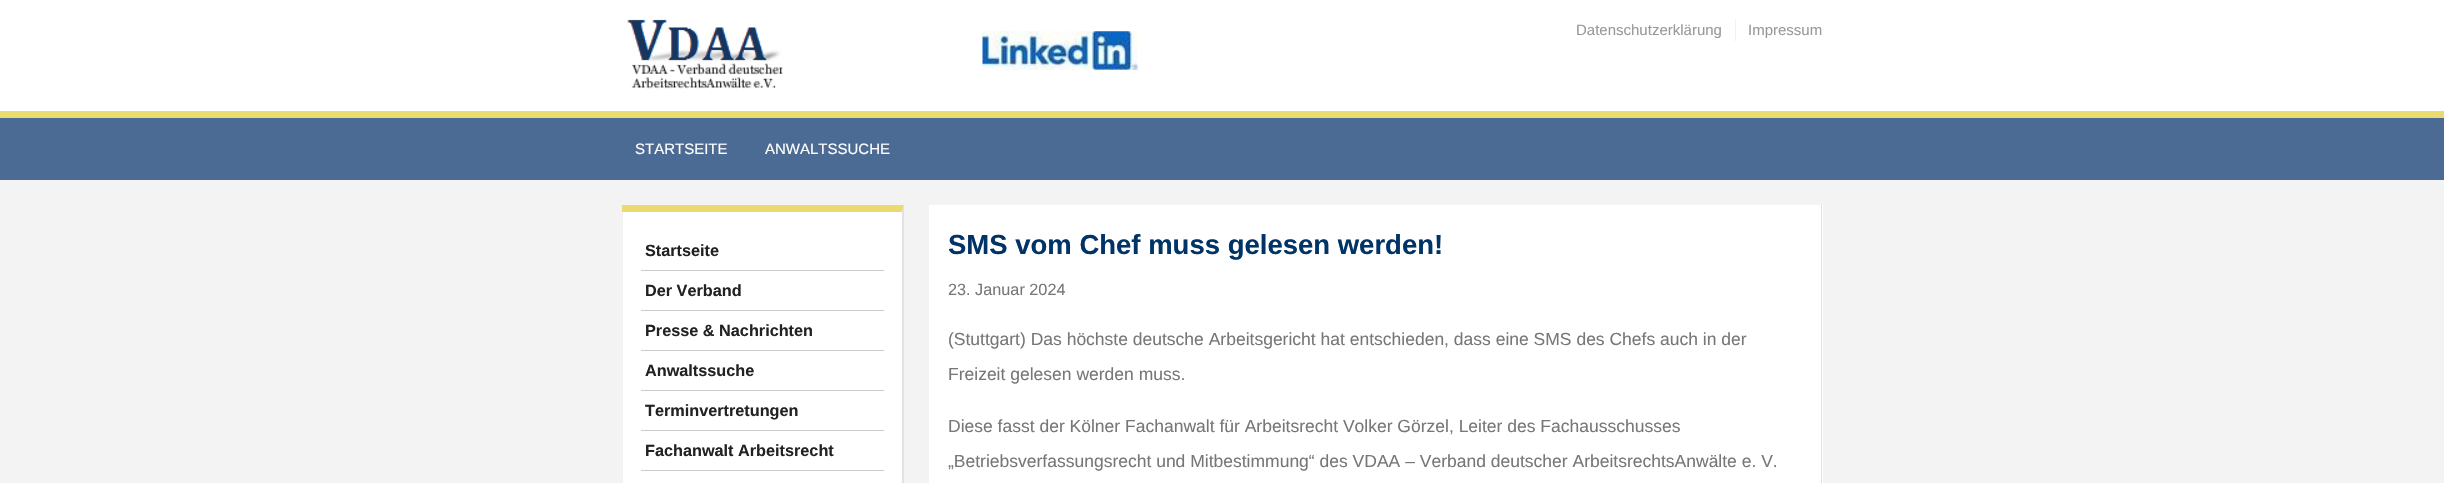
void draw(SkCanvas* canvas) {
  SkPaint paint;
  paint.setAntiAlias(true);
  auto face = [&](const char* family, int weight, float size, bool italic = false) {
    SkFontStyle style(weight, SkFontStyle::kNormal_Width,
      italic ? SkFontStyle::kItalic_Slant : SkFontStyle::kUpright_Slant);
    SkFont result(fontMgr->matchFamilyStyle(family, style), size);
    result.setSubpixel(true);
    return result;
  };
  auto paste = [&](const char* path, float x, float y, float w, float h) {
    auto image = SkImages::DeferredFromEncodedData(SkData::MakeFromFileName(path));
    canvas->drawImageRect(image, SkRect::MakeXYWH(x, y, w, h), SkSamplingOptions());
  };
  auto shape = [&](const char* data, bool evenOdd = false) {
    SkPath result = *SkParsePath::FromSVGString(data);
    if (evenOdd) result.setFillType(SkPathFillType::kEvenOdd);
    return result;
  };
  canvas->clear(0xfff3f3f3);
  paint.setColor(0xffffffff);
  canvas->drawRect(SkRect::MakeXYWH(0, 0, 2444, 111), paint);
  paste("img/1.png", 627, 19, 156, 70);
  paste("img/2.png", 982, 31, 156, 39);
  {
    const struct { float x, y, w, h; SkColor color; } items[] = {
      {1735, 19, 1, 22, 0xfff1f1f1},
      {0, 118, 2444, 62, 0xff4b6b94},
      {0, 111, 2444, 7, 0xffebda6f},
      {623, 205, 281, 278, 0xffffffff},
    };
    for (auto [x, y, w, h, color] : items) {
      paint.setColor(color);
      canvas->drawRect(SkRect::MakeXYWH(x, y, w, h), paint);
    }
  }
  paint.setColor(0xffebda6f);
  canvas->drawPath(shape("M622 205H904L902 212H622Z"), paint);
  paint.setColor(0xffe1e1e1);
  canvas->drawPath(shape("M904 205V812L902 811V212Z"), paint);
  {
    const struct { float x, y, w, h; SkColor color; } items[] = {
      {641, 270, 243, 1, 0xffcccccc},
      {641, 310, 243, 1, 0xffcccccc},
      {641, 350, 243, 1, 0xffcccccc},
      {641, 390, 243, 1, 0xffcccccc},
      {641, 430, 243, 1, 0xffcccccc},
      {641, 470, 243, 1, 0xffcccccc},
      {929, 205, 894, 278, 0xffffffff},
      {1821, 205, 1, 278, 0xffe1e1e1},
    };
    for (auto [x, y, w, h, color] : items) {
      paint.setColor(color);
      canvas->drawRect(SkRect::MakeXYWH(x, y, w, h), paint);
    }
  }
  auto f0 = face("Liberation Sans", 400, 15);
  paint.setColor(0xff999999);
  canvas->drawString("Datenschutzerklärung", 1576, 35, f0, paint);
  canvas->drawString("Impressum", 1748, 35, f0, paint);
  paint.setColor(0xffffffff);
  canvas->drawString("STARTSEITE", 635, 154, f0, paint);
  canvas->drawString("ANWALTSSUCHE", 765, 154, f0, paint);
  auto f1 = face("Liberation Sans", 700, 16.25f);
  paint.setColor(0xff222222);
  {
    const struct { const char* s; float x, y; } items[] = {
      {"Startseite", 645, 256},
      {"Der Verband", 645, 296},
      {"Presse & Nachrichten", 645, 336},
      {"Anwaltssuche", 645, 376},
      {"Terminvertretungen", 645, 416},
      {"Fachanwalt Arbeitsrecht", 645, 456},
    };
    for (auto [s, x, y] : items) {
      canvas->drawString(s, x, y, f1, paint);
    }
  }
  auto f2 = face("Liberation Sans", 700, 27.5f);
  paint.setColor(0xff003366);
  canvas->drawString("SMS vom Chef muss gelesen werden!", 948, 254, f2, paint);
  auto f3 = face("Liberation Sans", 400, 16.25f);
  paint.setColor(0xff777777);
  canvas->drawString("23. Januar 2024", 948, 295, f3, paint);
  auto f4 = face("Liberation Sans", 400, 17.5f);
  {
    const struct { const char* s; float x, y; } items[] = {
      {"(Stuttgart) Das höchste deutsche Arbeitsgericht hat entschieden, dass eine SMS des Chefs auch in der", 948, 345},
      {"Freizeit gelesen werden muss.", 948, 380},
      {"Diese fasst der Kölner Fachanwalt für Arbeitsrecht Volker Görzel, Leiter des Fachausschusses", 948, 432},
      {"„Betriebsverfassungsrecht und Mitbestimmung“ des VDAA – Verband deutscher ArbeitsrechtsAnwälte e. V.", 948, 467},
    };
    for (auto [s, x, y] : items) {
      canvas->drawString(s, x, y, f4, paint);
    }
  }
}
